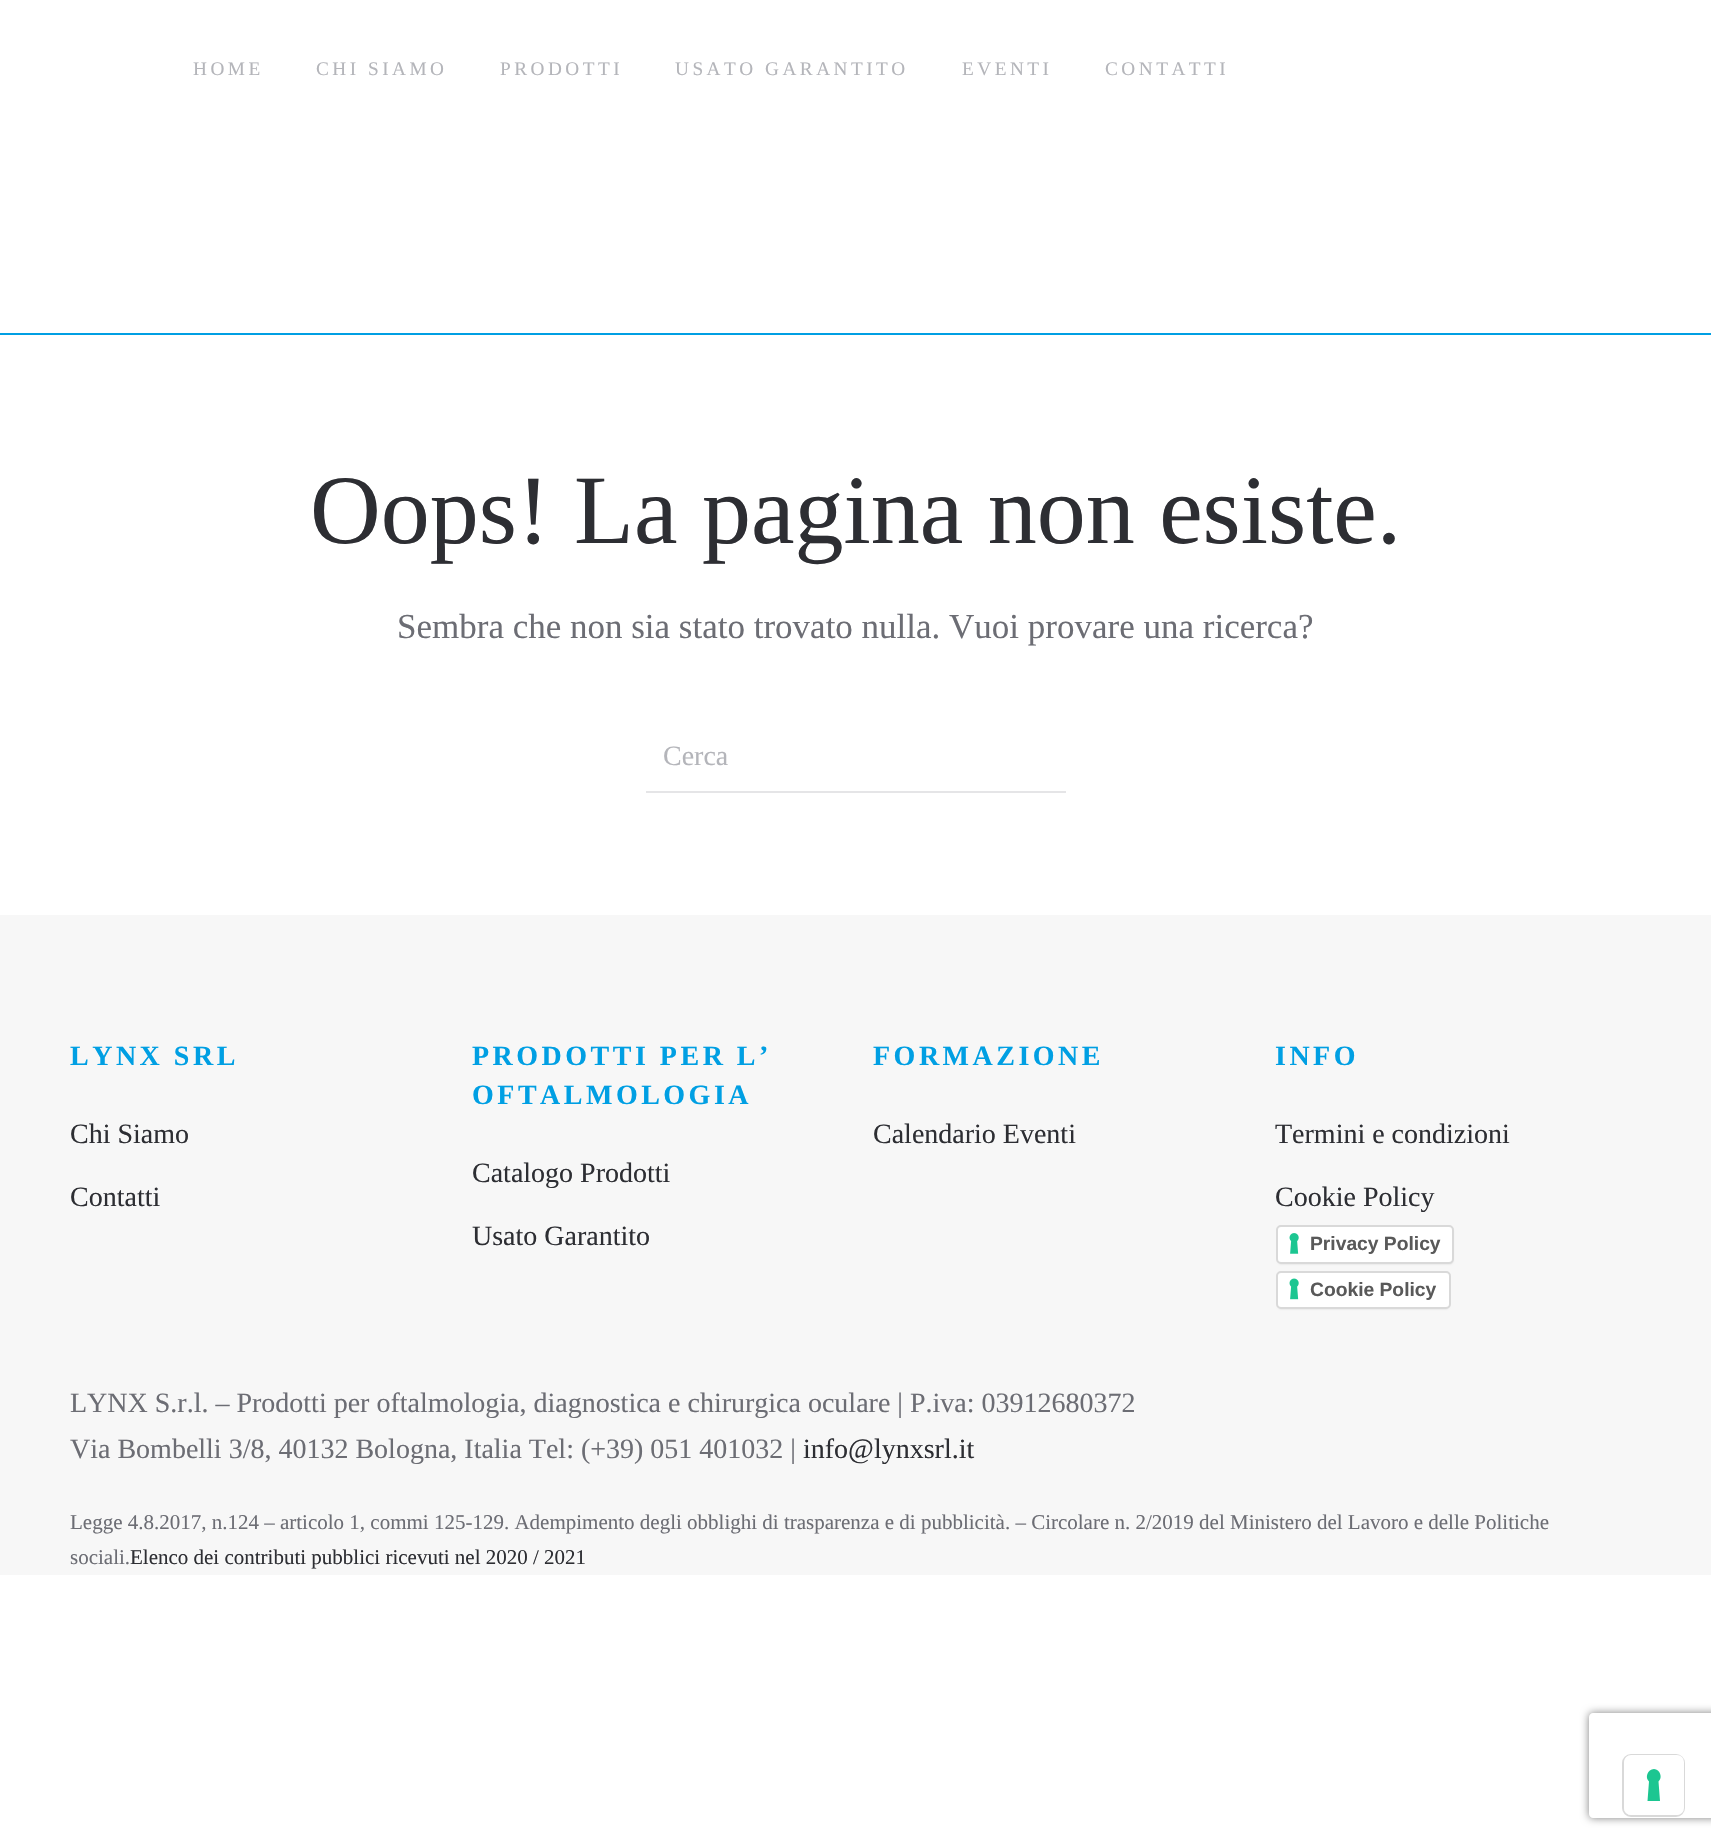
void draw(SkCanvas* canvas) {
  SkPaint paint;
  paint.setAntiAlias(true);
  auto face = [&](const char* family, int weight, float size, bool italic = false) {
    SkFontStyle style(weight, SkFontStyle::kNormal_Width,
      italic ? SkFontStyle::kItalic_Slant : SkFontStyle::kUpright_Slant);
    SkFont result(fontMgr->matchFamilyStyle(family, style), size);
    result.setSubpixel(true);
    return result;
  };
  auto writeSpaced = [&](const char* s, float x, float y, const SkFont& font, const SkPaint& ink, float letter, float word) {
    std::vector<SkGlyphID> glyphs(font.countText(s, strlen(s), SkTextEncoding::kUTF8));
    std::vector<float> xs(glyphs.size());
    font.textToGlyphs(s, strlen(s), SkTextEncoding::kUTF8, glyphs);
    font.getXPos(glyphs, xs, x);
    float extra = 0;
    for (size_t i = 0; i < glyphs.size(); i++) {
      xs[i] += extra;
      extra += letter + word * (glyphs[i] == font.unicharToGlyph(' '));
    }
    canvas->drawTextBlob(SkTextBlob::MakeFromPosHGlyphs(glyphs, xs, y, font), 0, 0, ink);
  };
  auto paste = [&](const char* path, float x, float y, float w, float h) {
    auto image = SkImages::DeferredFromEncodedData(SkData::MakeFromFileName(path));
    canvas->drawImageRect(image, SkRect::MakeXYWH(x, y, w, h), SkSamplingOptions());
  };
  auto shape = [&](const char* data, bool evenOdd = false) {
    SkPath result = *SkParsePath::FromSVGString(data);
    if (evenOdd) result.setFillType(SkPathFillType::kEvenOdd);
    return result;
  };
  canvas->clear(0xffffffff);
  {
    const struct { float x, y, w, h; SkColor color; } items[] = {
      {0, 333, 1711, 2, 0xff009fe3},
      {646, 791, 420, 2, 0xffe5e5e7},
      {0, 915, 1711, 660, 0xfff7f7f7},
    };
    for (auto [x, y, w, h, color] : items) {
      paint.setColor(color);
      canvas->drawRect(SkRect::MakeXYWH(x, y, w, h), paint);
    }
  }
  paint.setColor(0x26000000);
  paint.setMaskFilter(SkMaskFilter::MakeBlur(kNormal_SkBlurStyle, 1));
  canvas->drawRoundRect(SkRect::MakeXYWH(1278, 1229, 175, 35), 4, 4, paint);
  paint.setMaskFilter(nullptr);
  paint.setColor(0xffffffff);
  canvas->drawRoundRect(SkRect::MakeXYWH(1276, 1225, 178, 39), 5, 5, paint);
  paste("img/1.png", 1289, 1233, 10, 21);
  paint.setStroke(true);
  paint.setStrokeWidth(2);
  paint.setColor(0x26000000);
  canvas->drawRoundRect(SkRect::MakeXYWH(1277, 1226, 176, 37), 4, 4, paint);
  paint.setStroke(false);
  paint.setMaskFilter(SkMaskFilter::MakeBlur(kNormal_SkBlurStyle, 1));
  canvas->drawRoundRect(SkRect::MakeXYWH(1278, 1274, 171, 35), 4, 4, paint);
  paint.setMaskFilter(nullptr);
  paint.setColor(0xffffffff);
  canvas->drawRoundRect(SkRect::MakeXYWH(1276, 1271, 175, 38), 5, 5, paint);
  paste("img/2.png", 1289, 1278, 10, 22);
  paint.setStroke(true);
  paint.setColor(0x26000000);
  canvas->drawRoundRect(SkRect::MakeXYWH(1277, 1272, 173, 36), 4, 4, paint);
  canvas->save();
  canvas->clipPath(shape("M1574 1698H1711V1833H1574ZM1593 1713H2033C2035 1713 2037 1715 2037 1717V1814C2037 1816 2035 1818 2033 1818H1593C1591 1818 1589 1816 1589 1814V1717C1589 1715 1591 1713 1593 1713Z", true), true);
  paint.setStroke(false);
  paint.setColor(0xff808080);
  paint.setMaskFilter(SkMaskFilter::MakeBlur(kNormal_SkBlurStyle, 4.5f));
  canvas->drawRoundRect(SkRect::MakeXYWH(1589, 1713, 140, 105), 4, 4, paint);
  paint.setMaskFilter(nullptr);
  canvas->restore();
  paint.setStroke(true);
  paint.setColor(0xffd9d9d9);
  canvas->drawRoundRect(SkRect::MakeXYWH(1623, 1755, 61, 61), 8, 8, paint);
  paint.setStroke(false);
  paint.setColor(0xffffffff);
  canvas->drawRoundRect(SkRect::MakeXYWH(1624, 1755, 60, 60), 7, 7, paint);
  paint.setColor(0xff1cc691);
  canvas->drawPath(shape("M1654 1769C1660 1769.5 1663 1777.5 1658.5 1781.5L1660 1801H1647.5L1649 1781.5C1644.5 1777.5 1647.5 1769.5 1654 1769Z", true), paint);
  auto f0 = face("Liberation Serif", 400, 19.25f);
  paint.setColor(0xffb4b5ba);
  {
    const struct { const char* s; float x, y; } items[] = {
      {"HOME", 193, 75},
      {"CHI SIAMO", 316, 75},
      {"PRODOTTI", 500, 75},
      {"USATO GARANTITO", 675, 75},
      {"EVENTI", 962, 75},
      {"CONTATTI", 1105, 75},
    };
    for (auto [s, x, y] : items) {
      writeSpaced(s, x, y, f0, paint, 3.5f, 0);
    }
  }
  auto f1 = face("Liberation Serif", 400, 98);
  paint.setColor(0xff2d2e33);
  canvas->drawString("Oops! La pagina non esiste.", 310, 543, f1, paint);
  auto f2 = face("Liberation Serif", 400, 35);
  paint.setColor(0xff6c6d74);
  canvas->drawString("Sembra che non sia stato trovato nulla. Vuoi provare una ricerca?", 397, 638, f2, paint);
  auto f3 = face("Liberation Serif", 400, 28);
  paint.setColor(0xffb4b5ba);
  canvas->drawString("Cerca", 663, 765, f3, paint);
  auto f4 = face("Liberation Serif", 700, 28);
  paint.setColor(0xff009fe3);
  writeSpaced("LYNX SRL", 70, 1065, f4, paint, 3.5f, 0);
  paint.setColor(0xff2d2e33);
  canvas->drawString("Chi Siamo", 70, 1143, f3, paint);
  canvas->drawString("Contatti", 70, 1206, f3, paint);
  paint.setColor(0xff009fe3);
  writeSpaced("PRODOTTI PER L’", 472, 1065, f4, paint, 3.5f, 0);
  writeSpaced("OFTALMOLOGIA", 472, 1104, f4, paint, 3.5f, 0);
  paint.setColor(0xff2d2e33);
  canvas->drawString("Catalogo Prodotti", 472, 1182, f3, paint);
  canvas->drawString("Usato Garantito", 472, 1245, f3, paint);
  paint.setColor(0xff009fe3);
  writeSpaced("FORMAZIONE", 873, 1065, f4, paint, 3.5f, 0);
  paint.setColor(0xff2d2e33);
  canvas->drawString("Calendario Eventi", 873, 1143, f3, paint);
  paint.setColor(0xff009fe3);
  writeSpaced("INFO", 1275, 1065, f4, paint, 3.5f, 0);
  paint.setColor(0xff2d2e33);
  canvas->drawString("Termini e condizioni", 1275, 1143, f3, paint);
  canvas->drawString("Cookie Policy", 1275, 1206, f3, paint);
  auto f5 = face("Liberation Sans", 700, 19.25f);
  paint.setColor(0xff595959);
  canvas->drawString("Privacy Policy", 1310, 1250, f5, paint);
  canvas->drawString("Cookie Policy", 1310, 1296, f5, paint);
  paint.setColor(0xff6c6d74);
  canvas->drawString("LYNX S.r.l. – Prodotti per oftalmologia, diagnostica e chirurgica oculare | P.iva: 03912680372", 70, 1412, f3, paint);
  canvas->drawString("Via Bombelli 3/8, 40132 Bologna, Italia Tel: (+39) 051 401032 |", 70, 1458, f3, paint);
  paint.setColor(0xff2d2e33);
  canvas->drawString("info@lynxsrl.it", 803, 1458, f3, paint);
  auto f6 = face("Liberation Serif", 400, 21);
  paint.setColor(0xff6c6d74);
  canvas->drawString("Legge 4.8.2017, n.124 – articolo 1, commi 125-129. Adempimento degli obblighi di trasparenza e di pubblicità. – Circolare n. 2/2019 del Ministero del Lavoro e delle Politiche", 70, 1529, f6, paint);
  canvas->drawString("sociali.", 70, 1564, f6, paint);
  paint.setColor(0xff2d2e33);
  canvas->drawString("Elenco dei contributi pubblici ricevuti nel 2020 / 2021", 130, 1564, f6, paint);
}
